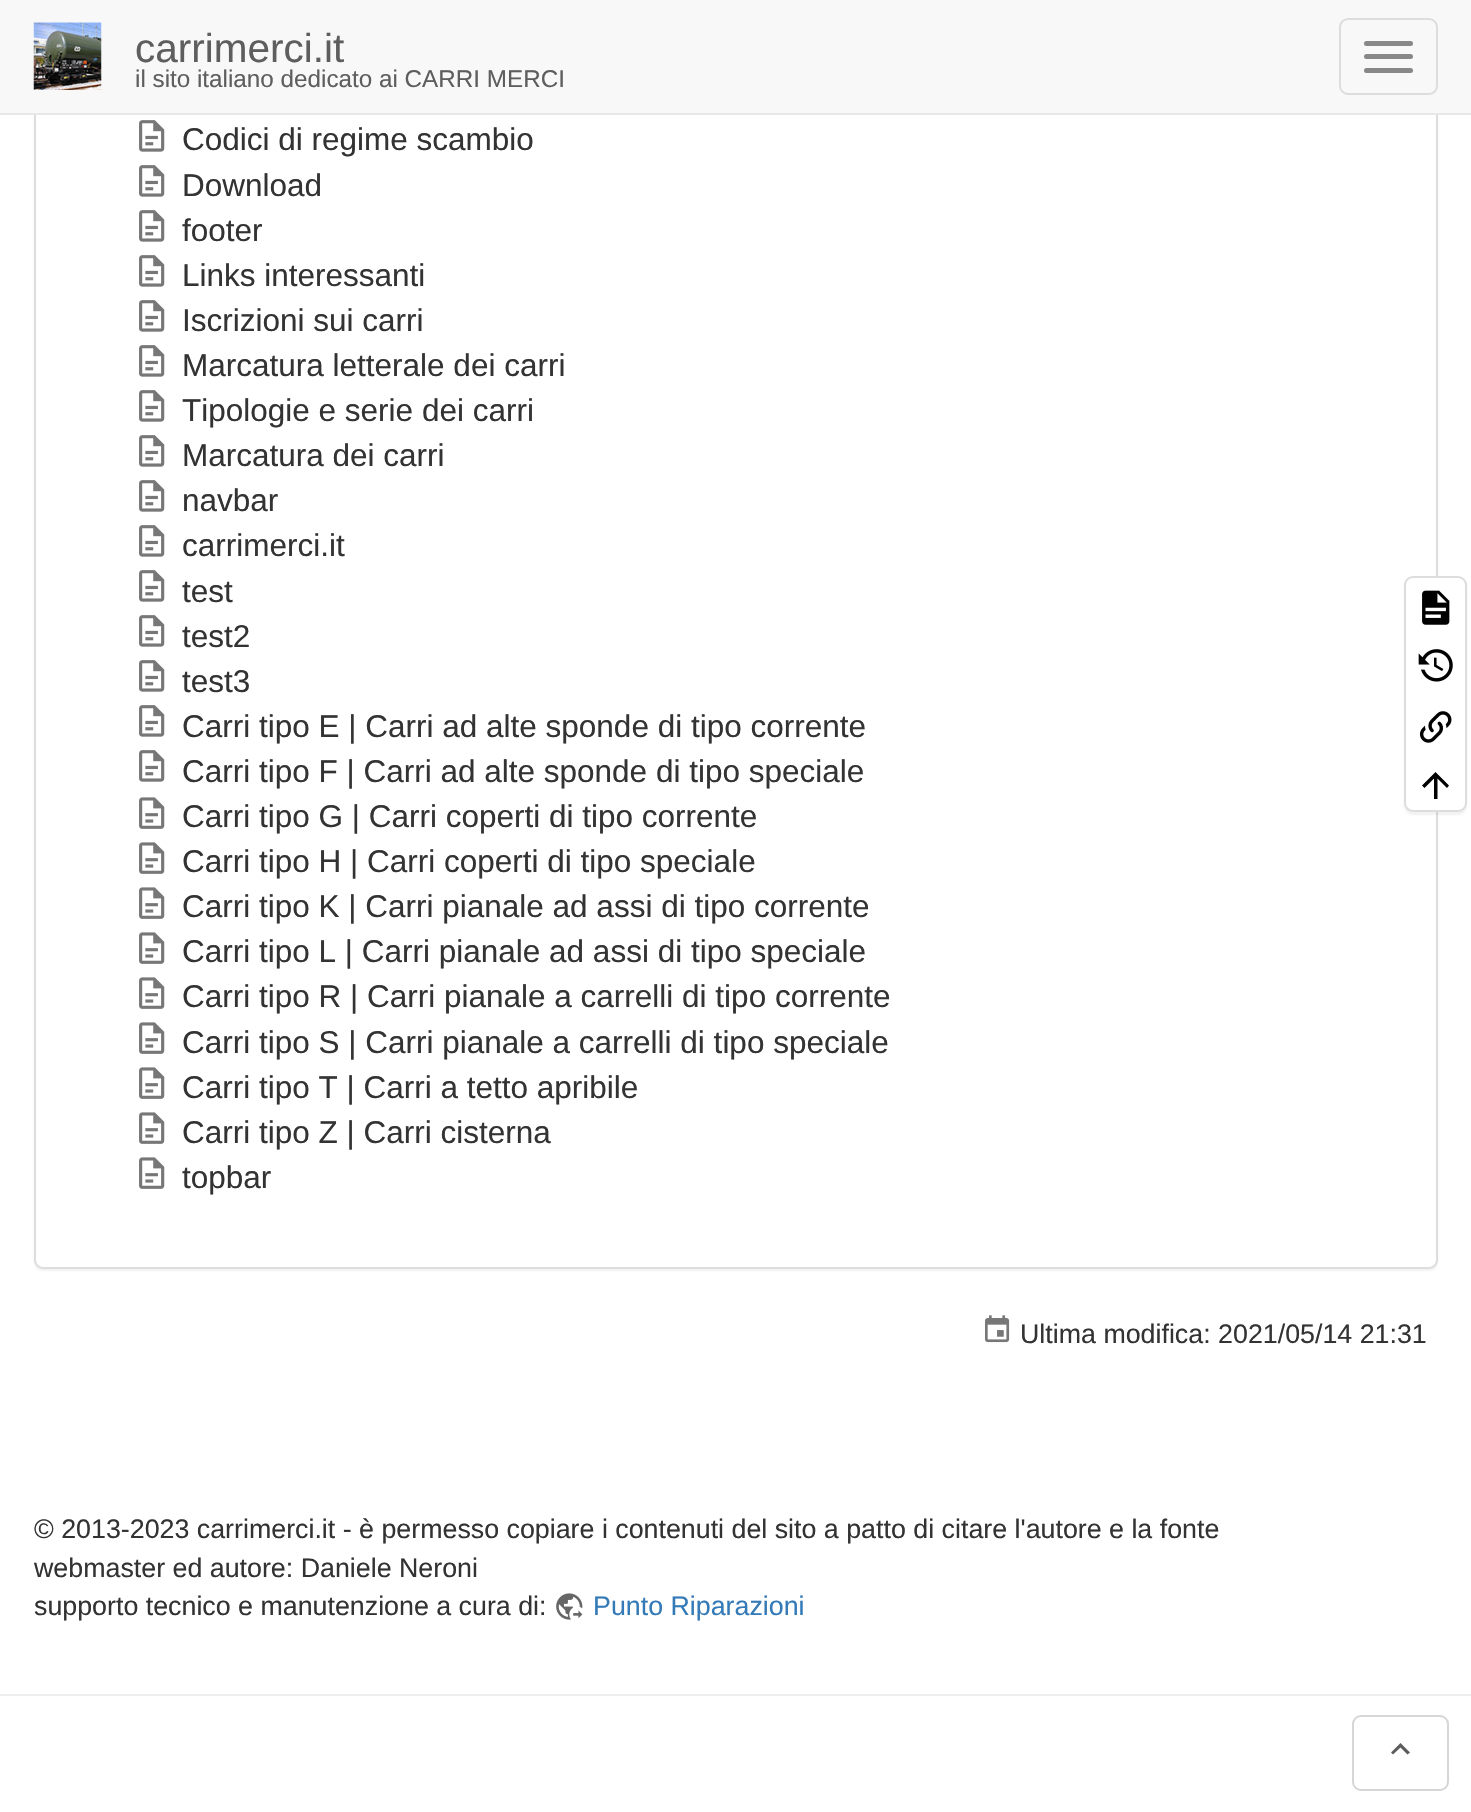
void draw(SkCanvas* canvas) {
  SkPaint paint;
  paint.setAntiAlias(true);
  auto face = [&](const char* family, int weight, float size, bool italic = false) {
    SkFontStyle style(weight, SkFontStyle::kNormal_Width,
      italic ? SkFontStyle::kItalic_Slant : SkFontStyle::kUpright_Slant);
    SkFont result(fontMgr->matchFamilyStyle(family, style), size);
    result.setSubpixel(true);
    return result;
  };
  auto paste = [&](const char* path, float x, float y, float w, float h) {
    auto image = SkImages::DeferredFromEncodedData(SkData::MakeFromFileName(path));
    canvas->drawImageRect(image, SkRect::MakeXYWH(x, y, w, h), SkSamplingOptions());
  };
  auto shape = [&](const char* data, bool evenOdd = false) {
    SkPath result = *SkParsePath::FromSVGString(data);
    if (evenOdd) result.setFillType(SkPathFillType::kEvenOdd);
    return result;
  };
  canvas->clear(0xffffffff);
  paint.setColor(0x0d000000);
  paint.setMaskFilter(SkMaskFilter::MakeBlur(kNormal_SkBlurStyle, 1));
  canvas->drawRoundRect(SkRect::MakeXYWH(34, -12, 1404, 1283), 9, 9, paint);
  paint.setMaskFilter(nullptr);
  paint.setColor(0xffffffff);
  canvas->drawRoundRect(SkRect::MakeXYWH(35, -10, 1402, 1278), 8, 8, paint);
  paint.setStroke(true);
  paint.setStrokeWidth(2);
  paint.setColor(0xffdddddd);
  canvas->drawRoundRect(SkRect::MakeXYWH(35, -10, 1402, 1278), 8, 8, paint);
  paint.setStroke(false);
  paint.setColor(0xfff8f8f8);
  canvas->drawRect(SkRect::MakeXYWH(0, 0, 1471, 113), paint);
  paint.setColor(0xffe7e7e7);
  canvas->drawRect(SkRect::MakeXYWH(0, 113, 1471, 2), paint);
  paste("img/1.png", 33, 22, 69, 68);
  paint.setStroke(true);
  paint.setColor(0xffdddddd);
  canvas->drawRoundRect(SkRect::MakeXYWH(1340, 19, 97, 75), 8, 8, paint);
  paint.setStroke(false);
  paint.setColor(0xff888888);
  canvas->drawRoundRect(SkRect::MakeXYWH(1364, 41, 49, 5), 2.5f, 2.5f, paint);
  canvas->drawRoundRect(SkRect::MakeXYWH(1364, 54, 49, 5), 2.5f, 2.5f, paint);
  canvas->drawRoundRect(SkRect::MakeXYWH(1364, 68, 49, 5), 2.5f, 2.5f, paint);
  paste("img/2.png", 139, 120, 26, 32);
  paste("img/2.png", 139, 165, 26, 32);
  paste("img/2.png", 139, 210, 26, 32);
  paste("img/2.png", 139, 255, 26, 32);
  paste("img/2.png", 139, 300, 26, 32);
  paste("img/2.png", 139, 345, 26, 32);
  paste("img/2.png", 139, 390, 26, 32);
  paste("img/2.png", 139, 435, 26, 32);
  paste("img/2.png", 139, 480, 26, 32);
  paste("img/2.png", 139, 525, 26, 32);
  paste("img/2.png", 139, 570, 26, 32);
  paste("img/2.png", 139, 615, 26, 32);
  paste("img/2.png", 139, 660, 26, 32);
  paste("img/2.png", 139, 705, 26, 32);
  paste("img/2.png", 139, 750, 26, 32);
  paste("img/3.png", 139, 797, 26, 32);
  paste("img/3.png", 139, 842, 26, 32);
  paste("img/3.png", 139, 887, 26, 32);
  paste("img/3.png", 139, 932, 26, 32);
  paste("img/3.png", 139, 977, 26, 32);
  paste("img/3.png", 139, 1022, 26, 32);
  paste("img/3.png", 139, 1067, 26, 32);
  paste("img/3.png", 139, 1112, 26, 32);
  paste("img/3.png", 139, 1157, 26, 32);
  paint.setColor(0x0d000000);
  paint.setMaskFilter(SkMaskFilter::MakeBlur(kNormal_SkBlurStyle, 1));
  canvas->drawRoundRect(SkRect::MakeXYWH(1404, 578, 63, 237), 9, 9, paint);
  paint.setMaskFilter(nullptr);
  paint.setColor(0xffffffff);
  canvas->drawRoundRect(SkRect::MakeXYWH(1405, 577, 61, 234), 8, 8, paint);
  paint.setStroke(true);
  paint.setColor(0xffdddddd);
  canvas->drawRoundRect(SkRect::MakeXYWH(1405, 577, 61, 234), 8, 8, paint);
  paste("img/4.png", 1422, 590, 28, 35);
  paste("img/5.png", 1418, 649, 35, 33);
  paste("img/6.png", 1419, 711, 33, 32);
  paint.setStroke(false);
  paint.setColor(0xff000000);
  canvas->drawPath(shape("M1437.5 799H1434V778.5L1424.5 788L1422 785.5L1435.5 772L1449 785.5L1447 788L1437.5 778.5Z"), paint);
  paste("img/7.png", 985, 1315, 25, 28);
  paste("img/8.png", 556, 1593, 27, 27);
  paint.setColor(0xffeeeeee);
  canvas->drawRect(SkRect::MakeXYWH(0, 1694, 1471, 2), paint);
  paint.setStroke(true);
  paint.setColor(0xffd6d6d6);
  canvas->drawRoundRect(SkRect::MakeXYWH(1353, 1716, 95, 74), 8, 8, paint);
  paint.setStroke(false);
  paint.setColor(0xff5c5c5c);
  canvas->drawPath(shape("M1393 1754.5L1400.5 1747.5L1407.5 1754.5L1410 1752.5L1400.5 1743L1391 1752.5Z"), paint);
  auto f0 = face("Liberation Sans", 400, 40.5f);
  paint.setColor(0xff5e5e5e);
  canvas->drawString("carrimerci.it", 135, 62, f0, paint);
  auto f1 = face("Liberation Sans", 400, 24.25f);
  canvas->drawString("il sito italiano dedicato ai CARRI MERCI", 135, 87, f1, paint);
  auto f2 = face("Liberation Sans", 400, 31.5f);
  paint.setColor(0xff333333);
  {
    const struct { const char* s; float x, y; } items[] = {
      {"Codici di regime scambio", 182, 150},
      {"Download", 182, 196},
      {"footer", 182, 241},
      {"Links interessanti", 182, 286},
      {"Iscrizioni sui carri", 182, 331},
      {"Marcatura letterale dei carri", 182, 376},
      {"Tipologie e serie dei carri", 182, 421},
      {"Marcatura dei carri", 182, 466},
      {"navbar", 182, 511},
      {"carrimerci.it", 182, 556},
      {"test", 182, 602},
      {"test2", 182, 647},
      {"test3", 182, 692},
      {"Carri tipo E | Carri ad alte sponde di tipo corrente", 182, 737},
      {"Carri tipo F | Carri ad alte sponde di tipo speciale", 182, 782},
      {"Carri tipo G | Carri coperti di tipo corrente", 182, 827},
      {"Carri tipo H | Carri coperti di tipo speciale", 182, 872},
      {"Carri tipo K | Carri pianale ad assi di tipo corrente", 182, 917},
      {"Carri tipo L | Carri pianale ad assi di tipo speciale", 182, 962},
      {"Carri tipo R | Carri pianale a carrelli di tipo corrente", 182, 1007},
      {"Carri tipo S | Carri pianale a carrelli di tipo speciale", 182, 1053},
      {"Carri tipo T | Carri a tetto apribile", 182, 1098},
      {"Carri tipo Z | Carri cisterna", 182, 1143},
      {"topbar", 182, 1188},
    };
    for (auto [s, x, y] : items) {
      canvas->drawString(s, x, y, f2, paint);
    }
  }
  auto f3 = face("Liberation Sans", 400, 26.8f);
  {
    const struct { const char* s; float x, y; } items[] = {
      {"Ultima modifica: 2021/05/14 21:31", 1020, 1343},
      {"© 2013-2023 carrimerci.it - è permesso copiare i contenuti del sito a patto di citare l'autore e la fonte", 34, 1538},
      {"webmaster ed autore: Daniele Neroni", 34, 1577},
      {"supporto tecnico e manutenzione a cura di:", 34, 1615},
    };
    for (auto [s, x, y] : items) {
      canvas->drawString(s, x, y, f3, paint);
    }
  }
  paint.setColor(0xff337ab7);
  canvas->drawString("Punto Riparazioni", 593, 1615, f3, paint);
}
